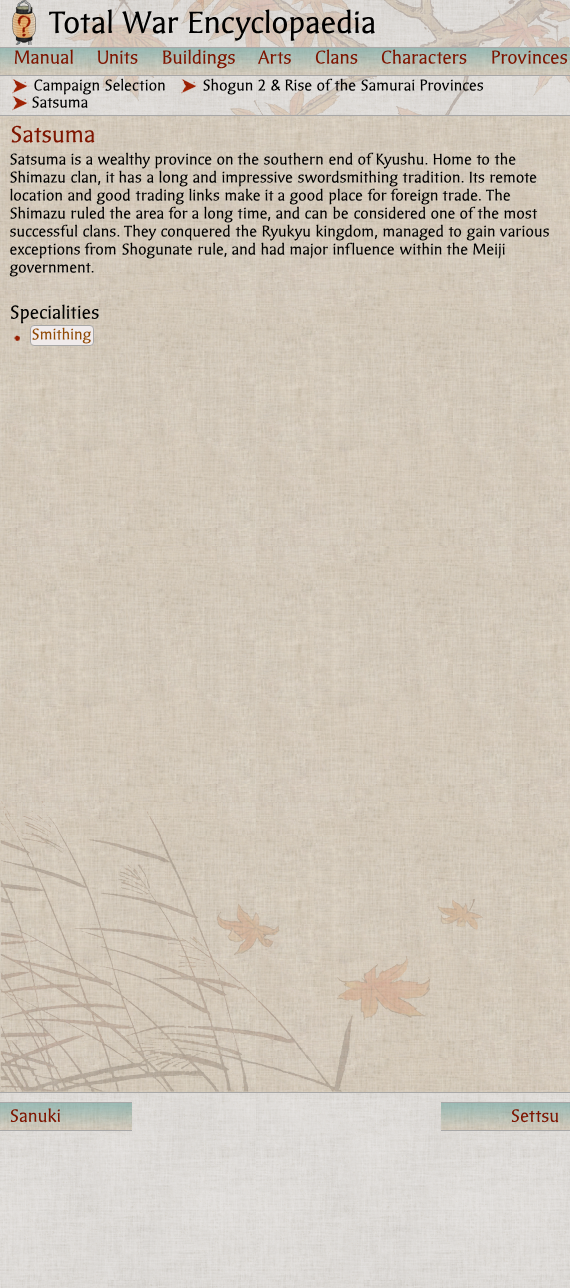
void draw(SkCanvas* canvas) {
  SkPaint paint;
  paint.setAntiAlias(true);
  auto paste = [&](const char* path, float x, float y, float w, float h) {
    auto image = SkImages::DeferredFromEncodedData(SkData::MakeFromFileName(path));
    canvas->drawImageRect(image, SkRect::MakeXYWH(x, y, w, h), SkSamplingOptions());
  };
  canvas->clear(0xffffffff);
  paste("img/1.png", 0, 0, 570, 1288);
  paste("img/2.png", 12, 0, 24, 45);
  paste("img/3.png", 49, 9, 64, 25);
  paste("img/4.png", 122, 11, 57, 23);
  paste("img/5.png", 189, 9, 186, 32);
  paste("img/6.png", 0, 47, 570, 29);
  paste("img/7.png", 14, 49, 59, 15);
  paste("img/8.png", 97, 50, 41, 14);
  paste("img/9.png", 162, 49, 73, 20);
  paste("img/10.png", 258, 50, 33, 14);
  paste("img/11.png", 315, 49, 43, 15);
  paste("img/12.png", 381, 49, 86, 15);
  paste("img/13.png", 492, 50, 76, 14);
  paste("img/14.png", 12, 78, 17, 16);
  paste("img/15.png", 34, 79, 66, 16);
  paste("img/16.png", 105, 78, 60, 13);
  paste("img/17.png", 181, 78, 17, 16);
  paste("img/18.png", 203, 78, 50, 17);
  paste("img/19.png", 258, 79, 8, 12);
  paste("img/20.png", 271, 79, 10, 12);
  paste("img/21.png", 285, 79, 27, 12);
  paste("img/22.png", 317, 78, 16, 13);
  paste("img/23.png", 334, 78, 22, 13);
  paste("img/24.png", 361, 79, 54, 12);
  paste("img/25.png", 420, 79, 64, 12);
  paste("img/26.png", 12, 95, 17, 16);
  paste("img/27.png", 32, 96, 56, 12);
  paste("img/28.png", 0, 116, 570, 976);
  paint.setColor(0xffa8a8a8);
  canvas->drawRect(SkRect::MakeXYWH(0, 115, 570, 1), paint);
  canvas->drawRect(SkRect::MakeXYWH(0, 1092, 570, 1), paint);
  paste("img/29.png", 11, 125, 84, 18);
  paste("img/30.png", 10, 153, 56, 12);
  paste("img/31.png", 71, 153, 10, 12);
  paste("img/32.png", 86, 156, 7, 9);
  paste("img/33.png", 98, 152, 53, 17);
  paste("img/34.png", 155, 153, 57, 16);
  paste("img/35.png", 217, 156, 16, 9);
  paste("img/36.png", 237, 152, 22, 13);
  paste("img/37.png", 264, 152, 59, 13);
  paste("img/38.png", 329, 152, 24, 13);
  paste("img/39.png", 358, 152, 16, 13);
  paste("img/40.png", 376, 152, 52, 17);
  paste("img/41.png", 433, 153, 39, 12);
  paste("img/42.png", 476, 155, 14, 10);
  paste("img/43.png", 494, 152, 22, 13);
  paste("img/44.png", 10, 170, 55, 13);
  paste("img/45.png", 71, 170, 30, 16);
  paste("img/46.png", 106, 171, 9, 12);
  paste("img/47.png", 119, 170, 23, 13);
  paste("img/48.png", 147, 174, 7, 9);
  paste("img/49.png", 159, 170, 29, 17);
  paste("img/50.png", 193, 170, 24, 13);
  paste("img/51.png", 222, 171, 71, 16);
  paste("img/52.png", 298, 170, 100, 17);
  paste("img/53.png", 402, 170, 62, 13);
  paste("img/54.png", 469, 171, 16, 12);
  paste("img/55.png", 490, 173, 47, 10);
  paste("img/56.png", 10, 188, 52, 13);
  paste("img/57.png", 68, 188, 24, 13);
  paste("img/58.png", 96, 188, 34, 17);
  paste("img/59.png", 135, 188, 49, 17);
  paste("img/60.png", 189, 188, 31, 13);
  paste("img/61.png", 225, 188, 35, 13);
  paste("img/62.png", 265, 189, 9, 12);
  paste("img/63.png", 278, 192, 7, 9);
  paste("img/64.png", 289, 188, 34, 17);
  paste("img/65.png", 329, 188, 34, 17);
  paste("img/66.png", 367, 188, 20, 13);
  paste("img/67.png", 390, 188, 48, 17);
  paste("img/68.png", 442, 188, 39, 13);
  paste("img/69.png", 486, 188, 25, 13);
  paste("img/70.png", 10, 206, 55, 13);
  paste("img/71.png", 71, 206, 34, 13);
  paste("img/72.png", 109, 206, 22, 13);
  paste("img/73.png", 136, 210, 28, 9);
  paste("img/74.png", 168, 206, 20, 13);
  paste("img/75.png", 192, 210, 7, 9);
  paste("img/76.png", 204, 206, 29, 17);
  paste("img/77.png", 237, 207, 34, 15);
  paste("img/78.png", 276, 206, 24, 13);
  paste("img/79.png", 305, 210, 22, 9);
  paste("img/80.png", 333, 206, 16, 13);
  paste("img/81.png", 354, 206, 72, 13);
  paste("img/82.png", 431, 210, 24, 9);
  paste("img/83.png", 460, 206, 16, 13);
  paste("img/84.png", 477, 206, 22, 13);
  paste("img/85.png", 504, 209, 34, 10);
  paste("img/86.png", 10, 224, 68, 13);
  paste("img/87.png", 83, 224, 37, 13);
  paste("img/88.png", 124, 224, 33, 17);
  paste("img/89.png", 161, 224, 69, 17);
  paste("img/90.png", 235, 224, 22, 13);
  paste("img/91.png", 262, 224, 48, 17);
  paste("img/92.png", 316, 224, 61, 17);
  paste("img/93.png", 383, 224, 61, 17);
  paste("img/94.png", 448, 227, 14, 10);
  paste("img/95.png", 466, 225, 29, 16);
  paste("img/96.png", 499, 225, 50, 12);
  paste("img/97.png", 10, 243, 70, 16);
  paste("img/98.png", 84, 242, 32, 13);
  paste("img/99.png", 122, 242, 71, 17);
  paste("img/100.png", 198, 242, 29, 16);
  paste("img/101.png", 232, 242, 24, 13);
  paste("img/102.png", 261, 242, 24, 13);
  paste("img/103.png", 290, 243, 38, 16);
  paste("img/104.png", 333, 242, 62, 13);
  paste("img/105.png", 400, 242, 42, 13);
  paste("img/106.png", 446, 242, 22, 13);
  paste("img/107.png", 473, 243, 32, 16);
  paste("img/108.png", 9, 263, 85, 14);
  paste("img/109.png", 11, 304, 88, 20);
  paste("img/110.png", 14, 335, 6, 6);
  paint.setColor(0xfff0ebeb);
  canvas->drawRoundRect(SkRect::MakeXYWH(30.5f, 325.5f, 63, 20), 3.5f, 3.5f, paint);
  paint.setStroke(true);
  paint.setStrokeWidth(1);
  paint.setColor(0xffa8a8a8);
  canvas->drawRoundRect(SkRect::MakeXYWH(30.5f, 325.5f, 63, 20), 3.5f, 3.5f, paint);
  paste("img/111.png", 32, 327, 59, 17);
  paste("img/112.png", 0, 1102, 132, 29);
  paste("img/113.png", 10, 1108, 50, 15);
  paste("img/114.png", 441, 1102, 129, 29);
  paste("img/115.png", 511, 1109, 48, 14);
}
